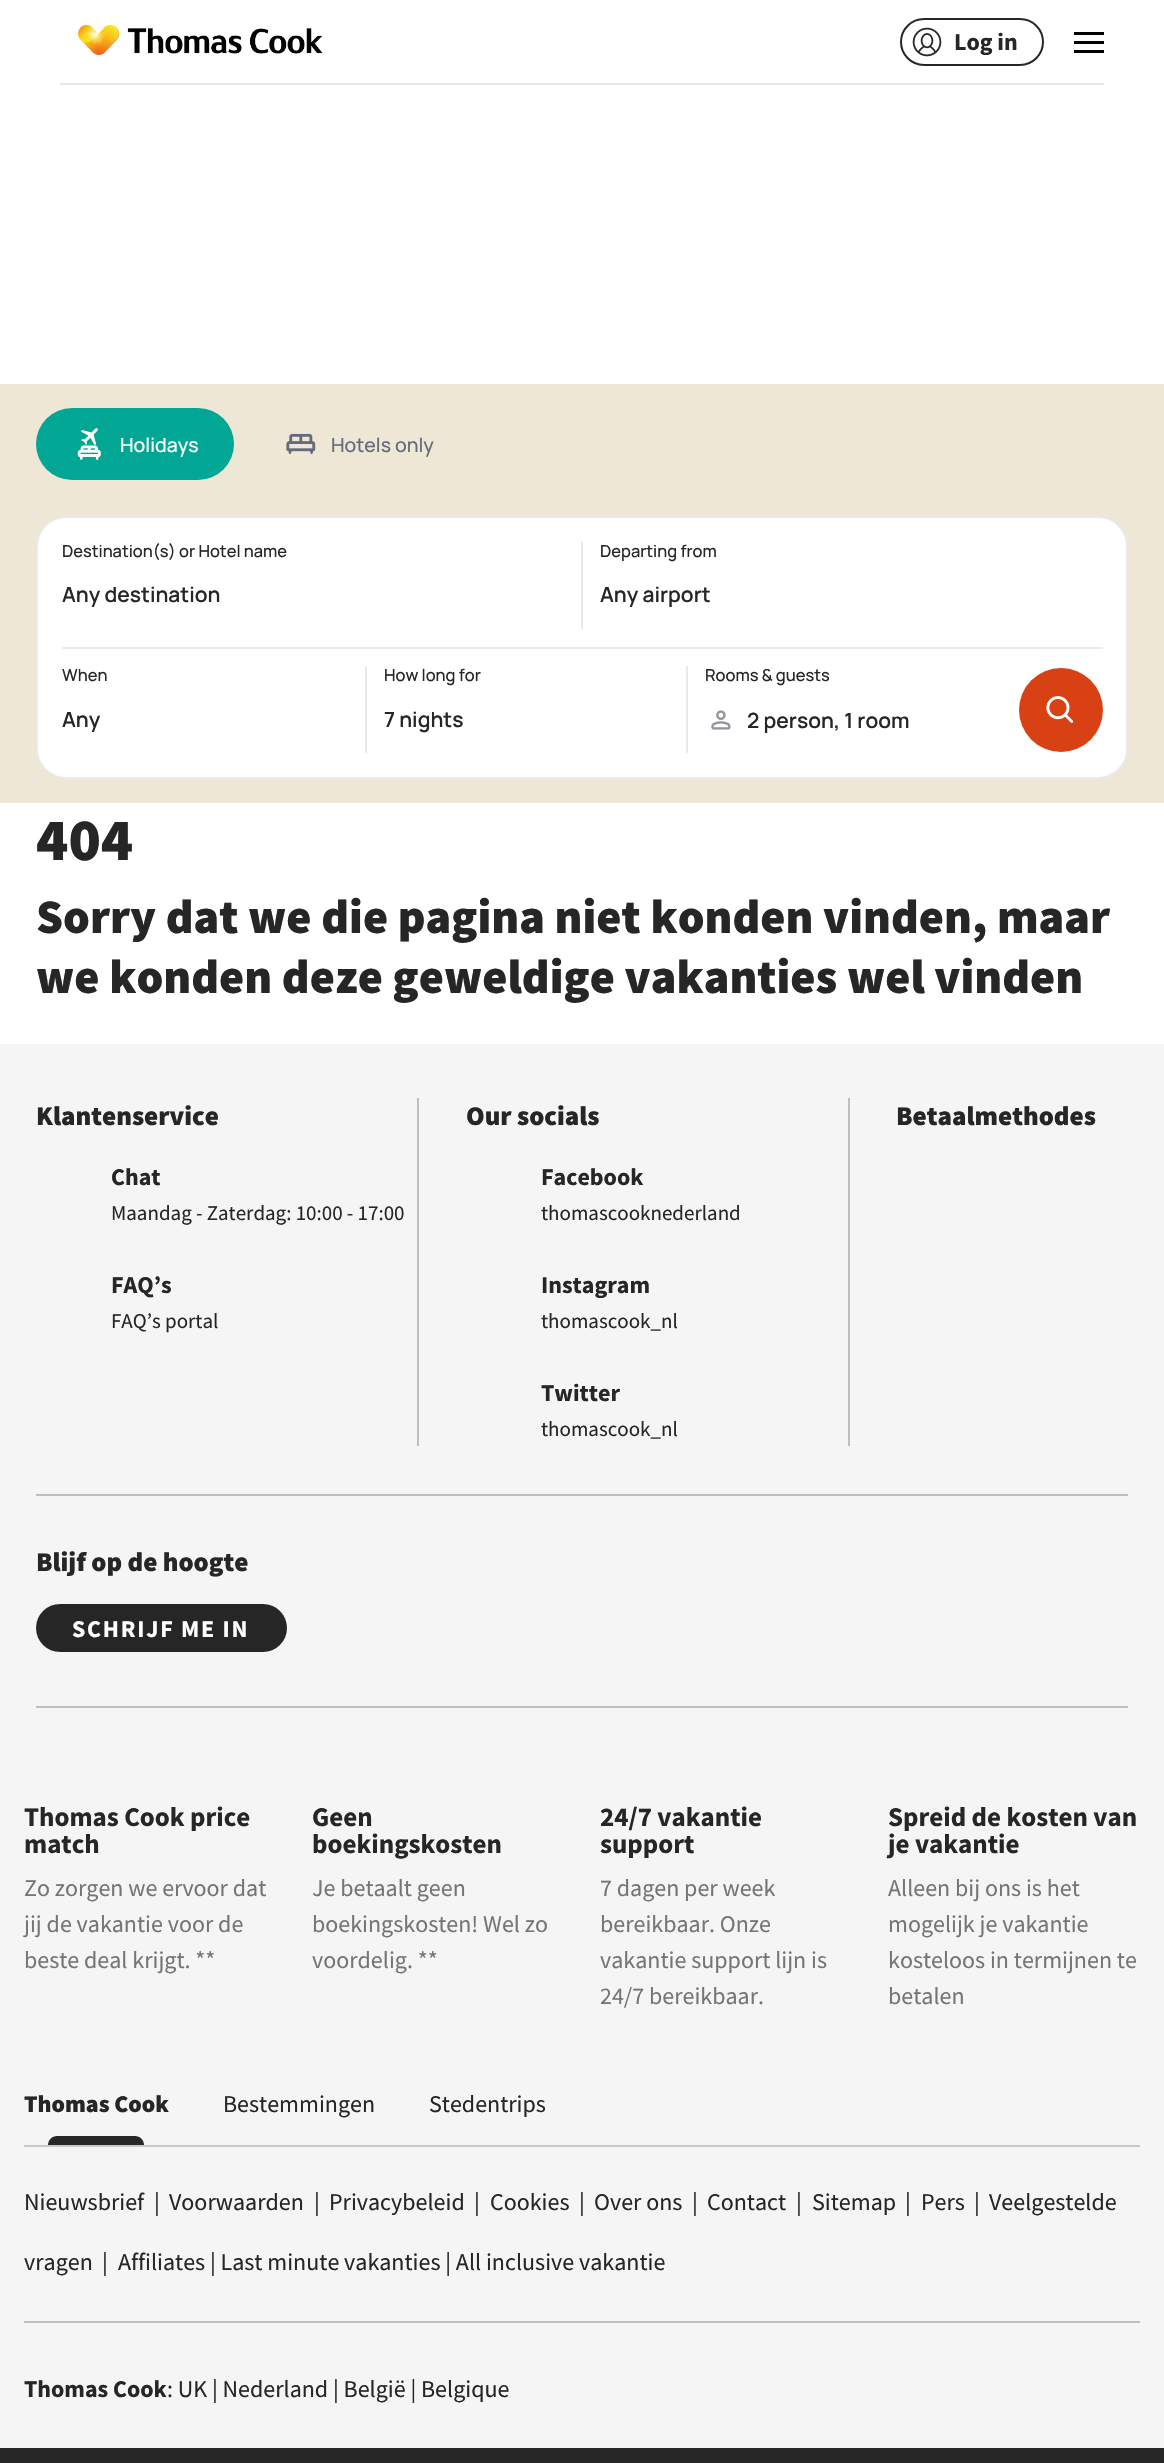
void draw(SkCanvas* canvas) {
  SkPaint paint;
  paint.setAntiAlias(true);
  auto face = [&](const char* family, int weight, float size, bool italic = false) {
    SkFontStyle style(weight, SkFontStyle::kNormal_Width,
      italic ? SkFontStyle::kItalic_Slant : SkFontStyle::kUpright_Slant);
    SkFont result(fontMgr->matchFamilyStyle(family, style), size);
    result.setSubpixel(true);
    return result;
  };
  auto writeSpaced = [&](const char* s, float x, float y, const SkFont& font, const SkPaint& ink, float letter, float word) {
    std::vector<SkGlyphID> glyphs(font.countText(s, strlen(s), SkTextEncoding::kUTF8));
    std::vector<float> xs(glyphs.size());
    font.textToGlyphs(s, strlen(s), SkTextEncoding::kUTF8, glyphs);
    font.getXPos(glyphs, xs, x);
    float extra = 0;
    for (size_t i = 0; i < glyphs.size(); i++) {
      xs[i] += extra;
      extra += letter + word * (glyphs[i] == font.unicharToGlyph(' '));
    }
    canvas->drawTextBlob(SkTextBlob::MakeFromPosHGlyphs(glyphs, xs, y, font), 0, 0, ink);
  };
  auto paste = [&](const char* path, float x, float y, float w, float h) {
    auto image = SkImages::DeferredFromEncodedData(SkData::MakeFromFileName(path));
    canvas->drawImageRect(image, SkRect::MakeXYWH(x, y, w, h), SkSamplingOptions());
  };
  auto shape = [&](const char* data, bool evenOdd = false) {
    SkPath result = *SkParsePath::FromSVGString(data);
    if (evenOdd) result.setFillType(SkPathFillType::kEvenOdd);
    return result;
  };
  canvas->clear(0xffffffff);
  paint.setColor(0xffe7e7e7);
  canvas->drawRect(SkRect::MakeXYWH(60, 83, 1044, 2), paint);
  paste("img/1.png", 78, 24, 245, 31);
  paint.setStroke(true);
  paint.setStrokeWidth(2);
  paint.setColor(0xff262626);
  canvas->drawRoundRect(SkRect::MakeXYWH(901, 19, 142, 46), 23, 23, paint);
  paste("img/2.png", 912, 27, 30, 30);
  paint.setStroke(false);
  {
    const struct { float x, y, w, h; SkColor color; } items[] = {
      {1074, 32, 30, 3, 0xff000000},
      {1074, 41, 30, 3, 0xff000000},
      {1074, 50, 30, 3, 0xff000000},
      {0, 384, 1164, 419, 0xffefe7d6},
    };
    for (auto [x, y, w, h, color] : items) {
      paint.setColor(color);
      canvas->drawRect(SkRect::MakeXYWH(x, y, w, h), paint);
    }
  }
  paint.setColor(0xff01a794);
  canvas->drawRoundRect(SkRect::MakeXYWH(36, 408, 198, 72), 36, 36, paint);
  paste("img/3.png", 77, 428, 24, 32);
  paste("img/4.png", 286, 433, 30, 22);
  paint.setColor(0xffffffff);
  canvas->drawRoundRect(SkRect::MakeXYWH(37, 517, 1090, 261), 29, 29, paint);
  paint.setStroke(true);
  paint.setColor(0xffe9eaec);
  canvas->drawRoundRect(SkRect::MakeXYWH(37, 517, 1090, 261), 29, 29, paint);
  paint.setStroke(false);
  {
    const struct { float x, y, w, h; SkColor color; } items[] = {
      {62, 647, 1041, 2, 0xffe9eaec},
      {581, 542, 2, 87, 0xffe9eaec},
      {686, 666, 2, 87, 0xffe9eaec},
      {365, 666, 2, 87, 0xffe9eaec},
    };
    for (auto [x, y, w, h, color] : items) {
      paint.setColor(color);
      canvas->drawRect(SkRect::MakeXYWH(x, y, w, h), paint);
    }
  }
  paste("img/5.png", 711, 710, 20, 20);
  paint.setColor(0xffd74113);
  canvas->drawCircle(1061, 710, 42, paint);
  paste("img/6.png", 1046, 696, 28, 27);
  {
    const struct { float x, y, w, h; SkColor color; } items[] = {
      {0, 1044, 1164, 1404, 0xfff5f5f5},
      {36, 1706, 1092, 2, 0xffbebebe},
      {417, 1098, 2, 348, 0xffbebebe},
      {848, 1098, 2, 348, 0xffbebebe},
      {36, 1494, 1092, 2, 0xffbebebe},
    };
    for (auto [x, y, w, h, color] : items) {
      paint.setColor(color);
      canvas->drawRect(SkRect::MakeXYWH(x, y, w, h), paint);
    }
  }
  paint.setColor(0xff262626);
  canvas->drawRoundRect(SkRect::MakeXYWH(36, 1604, 251, 48), 24, 24, paint);
  paint.setColor(0xffbebebe);
  canvas->drawRect(SkRect::MakeXYWH(24, 2321, 1116, 2), paint);
  paint.setColor(0xffcacaca);
  canvas->drawRect(SkRect::MakeXYWH(24, 2145, 1116, 2), paint);
  paint.setColor(0xff262626);
  canvas->drawPath(shape("M57 2136H135C140 2136 144 2140 144 2145H48C48 2140 52 2136 57 2136Z"), paint);
  canvas->drawRect(SkRect::MakeXYWH(0, 2448, 1164, 15), paint);
  auto f0 = face("Source Sans Pro", 700, 24);
  canvas->drawString("Log in", 954, 50, f0, paint);
  auto f1 = face("Manrope", 500, 19.5f);
  paint.setColor(0xffffffff);
  canvas->drawString("Holidays", 120, 452, f1, paint);
  paint.setColor(0xff656b7b);
  canvas->drawString("Hotels only", 331, 452, f1, paint);
  auto f2 = face("Manrope", 500, 16.5f);
  paint.setColor(0xff262626);
  canvas->drawString("Destination(s) or Hotel name", 62, 557, f2, paint);
  auto f3 = face("Manrope", 600, 21);
  canvas->drawString("Any destination", 62, 602, f3, paint);
  canvas->drawString("Departing from", 600, 557, f2, paint);
  canvas->drawString("Any airport", 600, 602, f3, paint);
  canvas->drawString("When", 62, 681, f2, paint);
  canvas->drawString("Any", 62, 727, f3, paint);
  canvas->drawString("How long for", 384, 681, f2, paint);
  canvas->drawString("7 nights", 384, 727, f3, paint);
  canvas->drawString("Rooms & guests", 705, 681, f2, paint);
  canvas->drawString("2 person, 1 room", 747, 728, f3, paint);
  auto f4 = face("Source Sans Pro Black", 900, 60);
  canvas->drawString("404", 36, 860, f4, paint);
  auto f5 = face("Source Sans Pro Black", 900, 48);
  canvas->drawString("Sorry dat we die pagina niet konden vinden, maar", 36, 933, f5, paint);
  canvas->drawString("we konden deze geweldige vakanties wel vinden", 36, 993, f5, paint);
  auto f6 = face("Source Sans Pro Black", 900, 27);
  canvas->drawString("Klantenservice", 36, 1125, f6, paint);
  canvas->drawString("Chat", 111, 1185, f0, paint);
  auto f7 = face("Source Sans Pro", 400, 21);
  canvas->drawString("Maandag - Zaterdag: 10:00 - 17:00", 111, 1220, f7, paint);
  canvas->drawString("FAQ’s", 111, 1293, f0, paint);
  canvas->drawString("FAQ’s portal", 111, 1328, f7, paint);
  canvas->drawString("Our socials", 466, 1125, f6, paint);
  canvas->drawString("Facebook", 541, 1185, f0, paint);
  canvas->drawString("thomascooknederland", 541, 1220, f7, paint);
  canvas->drawString("Instagram", 541, 1293, f0, paint);
  canvas->drawString("thomascook_nl", 541, 1328, f7, paint);
  canvas->drawString("Twitter", 541, 1401, f0, paint);
  canvas->drawString("thomascook_nl", 541, 1436, f7, paint);
  canvas->drawString("Betaalmethodes", 896, 1125, f6, paint);
  canvas->drawString("Blijf op de hoogte", 36, 1571, f6, paint);
  paint.setColor(0xffffffff);
  writeSpaced("SCHRIJF ME IN", 72, 1637, f0, paint, 1.75f, 0);
  auto f8 = face("Source Sans Pro", 700, 27);
  paint.setColor(0xff262626);
  canvas->drawString("Thomas Cook price", 24, 1826, f8, paint);
  canvas->drawString("match", 24, 1853, f8, paint);
  auto f9 = face("Source Sans Pro", 400, 24);
  paint.setColor(0xff757575);
  {
    const struct { const char* s; float x, y; } items[] = {
      {"Zo zorgen we ervoor dat", 24, 1896},
      {"jij de vakantie voor de", 24, 1932},
      {"beste deal krijgt. **", 24, 1968},
    };
    for (auto [s, x, y] : items) {
      canvas->drawString(s, x, y, f9, paint);
    }
  }
  paint.setColor(0xff262626);
  canvas->drawString("Geen", 312, 1826, f8, paint);
  canvas->drawString("boekingskosten", 312, 1853, f8, paint);
  paint.setColor(0xff757575);
  {
    const struct { const char* s; float x, y; } items[] = {
      {"Je betaalt geen", 312, 1896},
      {"boekingskosten! Wel zo", 312, 1932},
      {"voordelig. **", 312, 1968},
    };
    for (auto [s, x, y] : items) {
      canvas->drawString(s, x, y, f9, paint);
    }
  }
  paint.setColor(0xff262626);
  canvas->drawString("24/7 vakantie", 600, 1826, f8, paint);
  canvas->drawString("support", 600, 1853, f8, paint);
  paint.setColor(0xff757575);
  {
    const struct { const char* s; float x, y; } items[] = {
      {"7 dagen per week", 600, 1896},
      {"bereikbaar. Onze", 600, 1932},
      {"vakantie support lijn is", 600, 1968},
      {"24/7 bereikbaar.", 600, 2004},
    };
    for (auto [s, x, y] : items) {
      canvas->drawString(s, x, y, f9, paint);
    }
  }
  paint.setColor(0xff262626);
  canvas->drawString("Spreid de kosten van", 888, 1826, f8, paint);
  canvas->drawString("je vakantie", 888, 1853, f8, paint);
  paint.setColor(0xff757575);
  {
    const struct { const char* s; float x, y; } items[] = {
      {"Alleen bij ons is het", 888, 1896},
      {"mogelijk je vakantie", 888, 1932},
      {"kosteloos in termijnen te", 888, 1968},
      {"betalen", 888, 2004},
    };
    for (auto [s, x, y] : items) {
      canvas->drawString(s, x, y, f9, paint);
    }
  }
  auto f10 = face("Source Sans Pro Black", 900, 24);
  paint.setColor(0xff262626);
  canvas->drawString("Thomas Cook", 24, 2112, f10, paint);
  {
    const struct { const char* s; float x, y; } items[] = {
      {"Bestemmingen", 223, 2112},
      {"Stedentrips", 429, 2112},
      {"Nieuwsbrief", 24, 2210},
      {"|", 154, 2210},
      {"Voorwaarden", 169, 2210},
      {"|", 314, 2210},
      {"Privacybeleid", 329, 2210},
      {"|", 474, 2210},
      {"Cookies", 490, 2210},
      {"|", 579, 2210},
      {"Over ons", 594, 2210},
      {"|", 692, 2210},
      {"Contact", 707, 2210},
      {"|", 796, 2210},
      {"Sitemap", 812, 2210},
      {"|", 905, 2210},
      {"Pers", 921, 2210},
      {"|", 974, 2210},
      {"Veelgestelde", 989, 2210},
      {"vragen", 24, 2270},
      {"|", 102, 2270},
      {"Affiliates | Last minute vakanties | All inclusive vakantie", 118, 2270},
    };
    for (auto [s, x, y] : items) {
      canvas->drawString(s, x, y, f9, paint);
    }
  }
  canvas->drawString("Thomas Cook", 24, 2397, f0, paint);
  canvas->drawString(": UK | Nederland | België | Belgique", 167, 2397, f9, paint);
}
